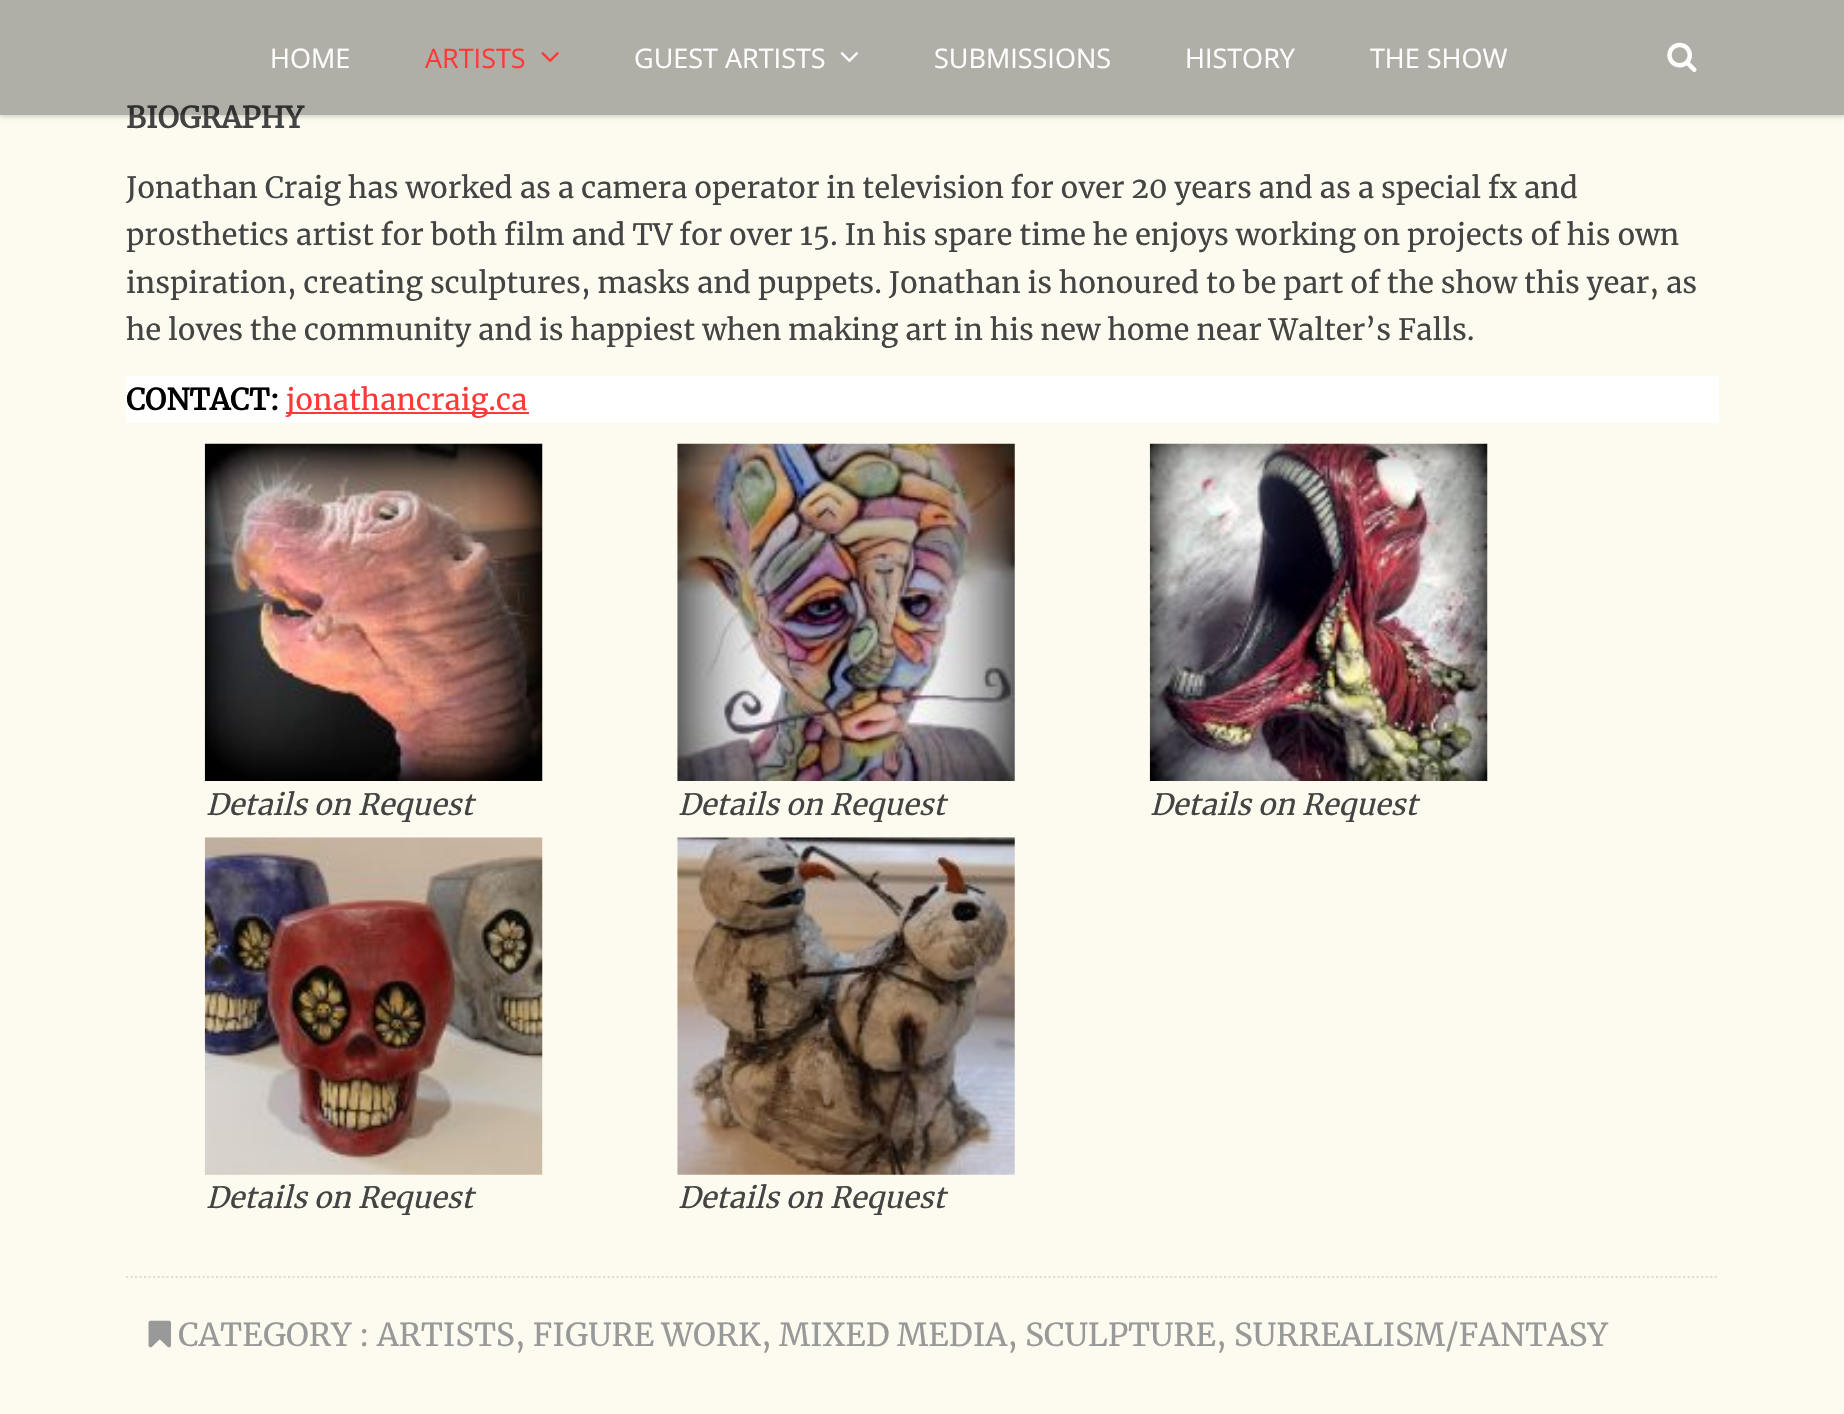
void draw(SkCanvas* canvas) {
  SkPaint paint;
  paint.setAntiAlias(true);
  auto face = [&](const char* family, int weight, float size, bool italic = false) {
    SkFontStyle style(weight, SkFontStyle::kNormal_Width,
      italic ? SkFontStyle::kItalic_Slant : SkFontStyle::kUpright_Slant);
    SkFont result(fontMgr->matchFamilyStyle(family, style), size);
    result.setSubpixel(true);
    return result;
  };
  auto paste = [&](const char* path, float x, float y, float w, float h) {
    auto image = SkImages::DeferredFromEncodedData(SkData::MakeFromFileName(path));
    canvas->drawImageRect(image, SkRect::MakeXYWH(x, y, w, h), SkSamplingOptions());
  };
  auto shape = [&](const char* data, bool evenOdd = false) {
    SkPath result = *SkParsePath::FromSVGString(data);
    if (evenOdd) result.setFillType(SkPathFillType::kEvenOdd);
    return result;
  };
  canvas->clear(0xfffdfbef);
  canvas->save();
  canvas->clipPath(shape("M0 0H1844V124H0ZM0 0H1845V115H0Z", true), true);
  paint.setColor(0x26000000);
  paint.setMaskFilter(SkMaskFilter::MakeBlur(kNormal_SkBlurStyle, 2));
  canvas->drawRect(SkRect::MakeXYWH(0, 2, 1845, 115), paint);
  paint.setMaskFilter(nullptr);
  canvas->restore();
  paint.setColor(0xffffffff);
  canvas->drawRect(SkRect::MakeXYWH(126, 376, 1593, 47), paint);
  paint.setColor(0xffff3838);
  canvas->drawRect(SkRect::MakeXYWH(286, 412, 243, 2), paint);
  paste("img/4.png", 204, 443, 339, 338);
  paste("img/5.png", 677, 443, 338, 338);
  paste("img/6.png", 1149, 443, 339, 338);
  paste("img/7.png", 204, 837, 339, 338);
  paste("img/8.png", 677, 837, 338, 338);
  paint.setStroke(true);
  paint.setStrokeWidth(2.2f);
  paint.setColor(0xffdddddd);
  paint.setPathEffect(SkDashPathEffect::Make({{2.25f, 2.25f}}, 0));
  canvas->drawPath(shape("M126 1277H1719"), paint);
  paint.setPathEffect(nullptr);
  paste("img/9.png", 148, 1320, 23, 28);
  auto f0 = face("Merriweather", 700, 29.25f);
  paint.setStroke(false);
  paint.setColor(0xff444444);
  canvas->drawString("BIOGRAPHY", 126, 128, f0, paint);
  paint.setColor(0x4d000000);
  canvas->drawRect(SkRect::MakeXYWH(0, 0, 1844, 115), paint);
  paste("img/3.png", 1667, 42, 30, 30);
  auto f1 = face("Open Sans", 400, 27);
  paint.setColor(0xffffffff);
  {
    const struct { const char* s; float x, y; } items[] = {
      {"THE SHOW", 1370, 68},
      {"HISTORY", 1185, 68},
      {"SUBMISSIONS", 934, 68},
    };
    for (auto [s, x, y] : items) {
      canvas->drawString(s, x, y, f1, paint);
    }
  }
  paste("img/2.png", 840, 52, 19, 11);
  canvas->drawString("GUEST ARTISTS", 634, 68, f1, paint);
  paste("img/1.png", 541, 52, 18, 11);
  paint.setColor(0xffff3838);
  canvas->drawString("ARTISTS", 425, 68, f1, paint);
  paint.setColor(0xffffffff);
  canvas->drawString("HOME", 270, 68, f1, paint);
  auto f2 = face("Merriweather", 400, 29.25f);
  paint.setColor(0xff444444);
  {
    const struct { const char* s; float x, y; } items[] = {
      {"Jonathan Craig has worked as a camera operator in television for over 20 years and as a special fx and", 126, 198},
      {"prosthetics artist for both film and TV for over 15. In his spare time he enjoys working on projects of his own", 126, 245},
      {"inspiration, creating sculptures, masks and puppets. Jonathan is honoured to be part of the show this year, as", 126, 293},
      {"he loves the community and is happiest when making art in his new home near Walter’s Falls.", 126, 340},
    };
    for (auto [s, x, y] : items) {
      canvas->drawString(s, x, y, f2, paint);
    }
  }
  paint.setColor(0xff000000);
  canvas->drawString("CONTACT:", 126, 410, f0, paint);
  paint.setColor(0xffff3838);
  canvas->drawString("jonathancraig.ca", 286, 410, f2, paint);
  auto f3 = face("Merriweather", 400, 29.25f, true);
  paint.setColor(0xff444444);
  {
    const struct { const char* s; float x, y; } items[] = {
      {"Details on Request", 206, 815},
      {"Details on Request", 678, 815},
      {"Details on Request", 1150, 815},
      {"Details on Request", 206, 1208},
      {"Details on Request", 678, 1208},
    };
    for (auto [s, x, y] : items) {
      canvas->drawString(s, x, y, f3, paint);
    }
  }
  auto f4 = face("Merriweather", 400, 31.5f);
  paint.setColor(0xff999999);
  canvas->drawString("CATEGORY : ARTISTS, FIGURE WORK, MIXED MEDIA, SCULPTURE, SURREALISM/FANTASY", 178, 1346, f4, paint);
}
